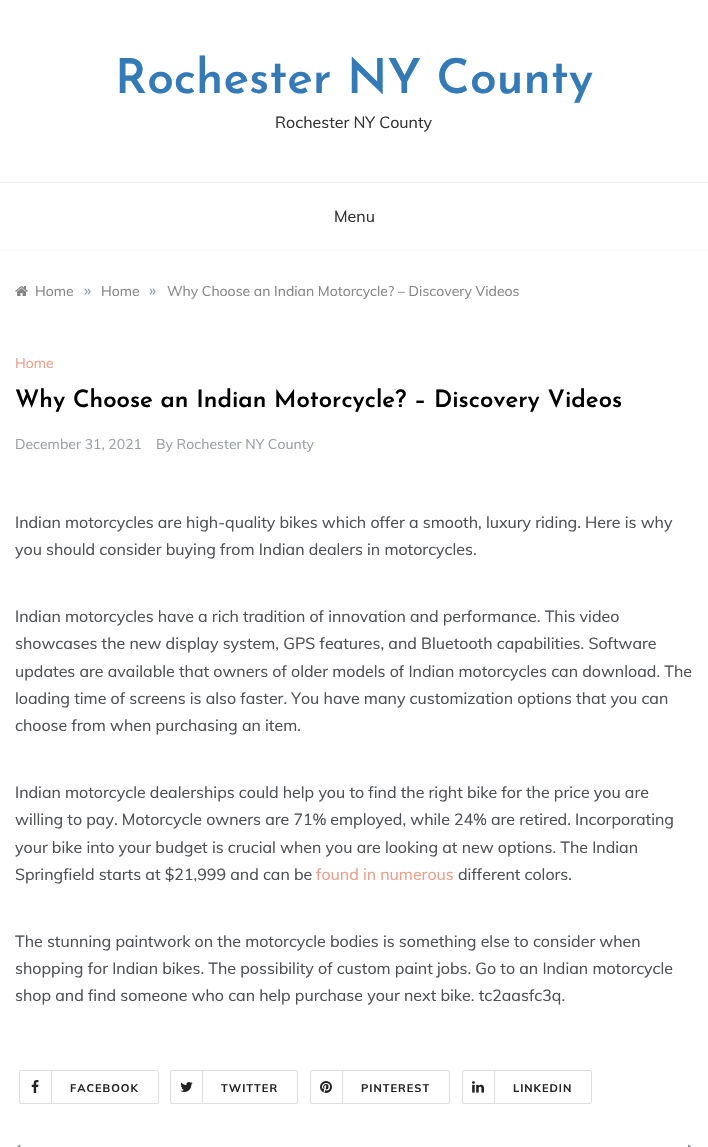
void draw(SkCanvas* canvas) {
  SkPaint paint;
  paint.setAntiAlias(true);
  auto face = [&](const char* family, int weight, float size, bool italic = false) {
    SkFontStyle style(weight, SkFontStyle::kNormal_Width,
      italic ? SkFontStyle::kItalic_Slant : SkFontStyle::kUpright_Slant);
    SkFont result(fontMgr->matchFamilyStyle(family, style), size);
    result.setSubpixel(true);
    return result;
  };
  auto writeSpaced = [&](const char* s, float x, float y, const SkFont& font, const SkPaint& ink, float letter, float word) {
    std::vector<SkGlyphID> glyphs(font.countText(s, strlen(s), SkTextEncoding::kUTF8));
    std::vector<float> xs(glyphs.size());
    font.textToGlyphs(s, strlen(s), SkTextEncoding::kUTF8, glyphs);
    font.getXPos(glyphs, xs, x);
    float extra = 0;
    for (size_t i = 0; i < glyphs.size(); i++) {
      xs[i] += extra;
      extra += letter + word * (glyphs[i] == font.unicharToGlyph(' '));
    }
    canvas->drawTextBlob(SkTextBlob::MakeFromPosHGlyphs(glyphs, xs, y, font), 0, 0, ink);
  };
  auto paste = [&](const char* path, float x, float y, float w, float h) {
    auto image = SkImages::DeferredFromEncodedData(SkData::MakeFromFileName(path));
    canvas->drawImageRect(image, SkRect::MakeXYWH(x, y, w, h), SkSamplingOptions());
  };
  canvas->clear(0xffffffff);
  paint.setColor(0xfffafafa);
  canvas->drawRect(SkRect::MakeXYWH(0, 250, 708, 1), paint);
  paint.setColor(0xfff2f2f2);
  canvas->drawRect(SkRect::MakeXYWH(0, 182, 708, 1), paint);
  paste("img/1.png", 15, 286, 13, 10);
  paint.setStroke(true);
  paint.setStrokeWidth(1);
  paint.setColor(0xffdddddd);
  canvas->drawRoundRect(SkRect::MakeXYWH(19.5f, 1070.5f, 139, 33), 1.5f, 1.5f, paint);
  paint.setStroke(false);
  canvas->drawRect(SkRect::MakeXYWH(51, 1071, 1, 32), paint);
  paste("img/2.png", 31, 1080, 8, 13);
  paint.setStroke(true);
  canvas->drawRoundRect(SkRect::MakeXYWH(170.5f, 1070.5f, 127, 33), 1.5f, 1.5f, paint);
  paint.setStroke(false);
  canvas->drawRect(SkRect::MakeXYWH(202, 1071, 1, 32), paint);
  paste("img/3.png", 180, 1082, 13, 10);
  paint.setStroke(true);
  canvas->drawRoundRect(SkRect::MakeXYWH(310.5f, 1070.5f, 139, 33), 1.5f, 1.5f, paint);
  paint.setStroke(false);
  canvas->drawRect(SkRect::MakeXYWH(342, 1071, 1, 32), paint);
  paste("img/4.png", 320, 1081, 12, 12);
  paint.setStroke(true);
  canvas->drawRoundRect(SkRect::MakeXYWH(462.5f, 1070.5f, 129, 33), 1.5f, 1.5f, paint);
  paint.setStroke(false);
  canvas->drawRect(SkRect::MakeXYWH(494, 1071, 1, 32), paint);
  paste("img/5.png", 472, 1081, 12, 12);
  paste("img/6.png", 17, 1144, 4, 3);
  paste("img/7.png", 688, 1144, 4, 3);
  auto f0 = face("Josefin Sans", 600, 48);
  paint.setColor(0xff337ab7);
  canvas->drawString("Rochester NY County", 115, 93, f0, paint);
  auto f1 = face("Muli", 400, 16);
  paint.setColor(0xff333333);
  canvas->drawString("Rochester NY County", 275, 128, f1, paint);
  canvas->drawString("Menu", 334, 222, f1, paint);
  auto f2 = face("Muli", 400, 14);
  paint.setColor(0xff858585);
  canvas->drawString("Home", 35, 296, f2, paint);
  paint.setColor(0xff8d97a1);
  canvas->drawString("»", 84, 296, f1, paint);
  paint.setColor(0xff858585);
  canvas->drawString("Home", 101, 296, f2, paint);
  paint.setColor(0xff8d97a1);
  canvas->drawString("»", 149, 296, f1, paint);
  paint.setColor(0xff858585);
  canvas->drawString("Why Choose an Indian Motorcycle? – Discovery Videos", 167, 296, f2, paint);
  paint.setColor(0xffef9d87);
  canvas->drawString("Home", 15, 368, f2, paint);
  auto f3 = face("Josefin Sans", 600, 24);
  paint.setColor(0xff000000);
  canvas->drawString("Why Choose an Indian Motorcycle? – Discovery Videos", 15, 407, f3, paint);
  paint.setColor(0xff989ea6);
  canvas->drawString("December 31, 2021", 15, 449, f2, paint);
  canvas->drawString("By Rochester NY County", 156, 449, f2, paint);
  paint.setColor(0xff4c4f53);
  {
    const struct { const char* s; float x, y; } items[] = {
      {"Indian motorcycles are high-quality bikes which offer a smooth, luxury riding. Here is why", 15, 528},
      {"you should consider buying from Indian dealers in motorcycles.", 15, 555},
      {"Indian motorcycles have a rich tradition of innovation and performance. This video", 15, 622},
      {"showcases the new display system, GPS features, and Bluetooth capabilities. Software", 15, 649},
      {"updates are available that owners of older models of Indian motorcycles can download. The", 15, 677},
      {"loading time of screens is also faster. You have many customization options that you can", 15, 704},
      {"choose from when purchasing an item.", 15, 731},
      {"Indian motorcycle dealerships could help you to find the right bike for the price you are", 15, 798},
      {"willing to pay. Motorcycle owners are 71% employed, while 24% are retired. Incorporating", 15, 825},
      {"your bike into your budget is crucial when you are looking at new options. The Indian", 15, 853},
      {"Springfield starts at $21,999 and can be", 15, 880},
    };
    for (auto [s, x, y] : items) {
      canvas->drawString(s, x, y, f1, paint);
    }
  }
  paint.setColor(0xffef9d87);
  canvas->drawString("found in numerous", 316, 880, f1, paint);
  paint.setColor(0xff4c4f53);
  {
    const struct { const char* s; float x, y; } items[] = {
      {"different colors.", 458, 880},
      {"The stunning paintwork on the motorcycle bodies is something else to consider when", 15, 947},
      {"shopping for Indian bikes. The possibility of custom paint jobs. Go to an Indian motorcycle", 15, 974},
      {"shop and find someone who can help purchase your next bike. tc2aasfc3q.", 15, 1001},
    };
    for (auto [s, x, y] : items) {
      canvas->drawString(s, x, y, f1, paint);
    }
  }
  auto f4 = face("Muli", 700, 11);
  paint.setColor(0xff222222);
  {
    const struct { const char* s; float x, y; } items[] = {
      {"FACEBOOK", 70, 1092},
      {"TWITTER", 221, 1092},
      {"PINTEREST", 361, 1092},
      {"LINKEDIN", 513, 1092},
    };
    for (auto [s, x, y] : items) {
      writeSpaced(s, x, y, f4, paint, 1, 0);
    }
  }
}
